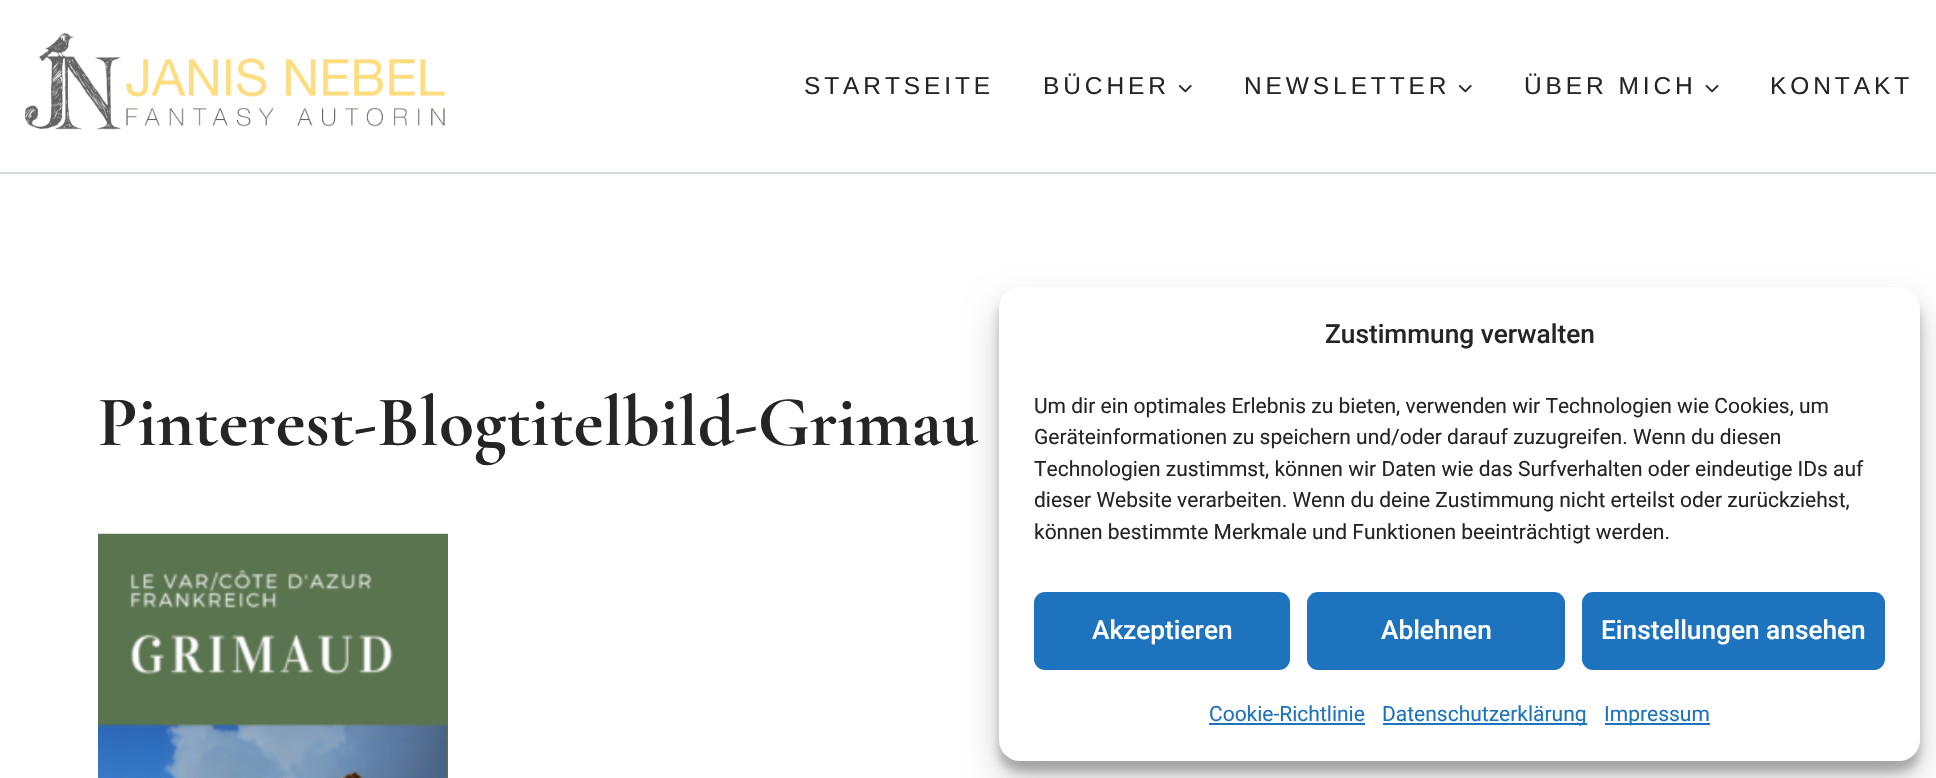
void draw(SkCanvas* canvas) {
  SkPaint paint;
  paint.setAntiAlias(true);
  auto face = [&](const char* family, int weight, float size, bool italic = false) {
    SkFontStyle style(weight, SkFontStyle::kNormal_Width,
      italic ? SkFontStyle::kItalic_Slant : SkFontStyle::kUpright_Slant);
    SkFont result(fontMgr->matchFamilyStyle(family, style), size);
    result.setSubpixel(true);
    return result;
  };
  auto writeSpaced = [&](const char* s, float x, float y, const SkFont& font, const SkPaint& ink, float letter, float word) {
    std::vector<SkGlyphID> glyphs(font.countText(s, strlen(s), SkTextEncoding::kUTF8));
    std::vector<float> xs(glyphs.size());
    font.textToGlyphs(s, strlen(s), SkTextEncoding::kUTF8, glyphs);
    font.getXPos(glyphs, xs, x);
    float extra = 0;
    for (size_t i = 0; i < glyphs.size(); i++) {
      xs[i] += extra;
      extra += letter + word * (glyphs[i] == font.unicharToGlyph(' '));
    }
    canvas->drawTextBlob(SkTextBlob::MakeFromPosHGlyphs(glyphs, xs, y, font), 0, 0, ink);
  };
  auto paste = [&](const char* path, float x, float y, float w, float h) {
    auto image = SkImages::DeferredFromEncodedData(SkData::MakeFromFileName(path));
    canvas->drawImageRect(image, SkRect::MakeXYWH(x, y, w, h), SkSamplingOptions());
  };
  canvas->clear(0xffffffff);
  paint.setColor(0xffd4d9e0);
  canvas->drawRect(SkRect::MakeXYWH(0, 172, 1936, 2), paint);
  paste("img/1.png", 25, 33, 420, 97);
  paste("img/2.png", 1178, 85, 14, 8);
  paste("img/2.png", 1458, 85, 14, 8);
  paste("img/3.png", 1705, 85, 14, 8);
  paste("img/4.png", 98, 533, 350, 245);
  paint.setColor(0x3b000000);
  paint.setMaskFilter(SkMaskFilter::MakeBlur(kNormal_SkBlurStyle, 5));
  canvas->drawRoundRect(SkRect::MakeXYWH(999, 298, 921, 474), 21, 21, paint);
  paint.setMaskFilter(nullptr);
  paint.setColor(0x30000000);
  paint.setMaskFilter(SkMaskFilter::MakeBlur(kNormal_SkBlurStyle, 17.5f));
  canvas->drawRoundRect(SkRect::MakeXYWH(999, 305, 921, 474), 21, 21, paint);
  paint.setMaskFilter(nullptr);
  paint.setColor(0xffffffff);
  canvas->drawRoundRect(SkRect::MakeXYWH(999, 287, 921, 474), 21, 21, paint);
  paint.setColor(0xff1e73be);
  canvas->drawRoundRect(SkRect::MakeXYWH(1035, 593, 254, 76), 10, 10, paint);
  paint.setStroke(true);
  paint.setStrokeWidth(2);
  canvas->drawRoundRect(SkRect::MakeXYWH(1035, 593, 254, 76), 10, 10, paint);
  paint.setStroke(false);
  canvas->drawRoundRect(SkRect::MakeXYWH(1308, 593, 256, 76), 10, 10, paint);
  paint.setStroke(true);
  canvas->drawRoundRect(SkRect::MakeXYWH(1308, 593, 256, 76), 10, 10, paint);
  paint.setStroke(false);
  canvas->drawRoundRect(SkRect::MakeXYWH(1583, 593, 301, 76), 10, 10, paint);
  paint.setStroke(true);
  canvas->drawRoundRect(SkRect::MakeXYWH(1583, 593, 301, 76), 10, 10, paint);
  paint.setStroke(false);
  {
    const struct { float x, y, w, h; SkColor color; } items[] = {
      {1209, 723, 156, 2, 0xff1e73be},
      {1383, 723, 204, 2, 0xff1e73be},
      {1605, 723, 105, 2, 0xff1e73be},
    };
    for (auto [x, y, w, h, color] : items) {
      paint.setColor(color);
      canvas->drawRect(SkRect::MakeXYWH(x, y, w, h), paint);
    }
  }
  auto f0 = face("Liberation Sans", 400, 24.5f);
  paint.setColor(0xff252525);
  {
    const struct { const char* s; float x, y; } items[] = {
      {"STARTSEITE", 804, 94},
      {"BÜCHER", 1043, 94},
      {"NEWSLETTER", 1244, 94},
      {"ÜBER MICH", 1524, 94},
      {"KONTAKT", 1770, 94},
    };
    for (auto [s, x, y] : items) {
      writeSpaced(s, x, y, f0, paint, 3.9f, 0);
    }
  }
  auto f1 = face("Cormorant Garamond", 300, 71.75f);
  canvas->drawString("Pinterest-Blogtitelbild-Grimau", 98, 445, f1, paint);
  auto f2 = face("Roboto", 500, 26.25f);
  canvas->drawString("Zustimmung verwalten", 1325, 343, f2, paint);
  auto f3 = face("Roboto", 400, 21);
  {
    const struct { const char* s; float x, y; } items[] = {
      {"Um dir ein optimales Erlebnis zu bieten, verwenden wir Technologien wie Cookies, um", 1034, 413},
      {"Geräteinformationen zu speichern und/oder darauf zuzugreifen. Wenn du diesen", 1034, 444},
      {"Technologien zustimmst, können wir Daten wie das Surfverhalten oder eindeutige IDs auf", 1034, 476},
      {"dieser Website verarbeiten. Wenn du deine Zustimmung nicht erteilst oder zurückziehst,", 1034, 507},
      {"können bestimmte Merkmale und Funktionen beeinträchtigt werden.", 1034, 539},
    };
    for (auto [s, x, y] : items) {
      canvas->drawString(s, x, y, f3, paint);
    }
  }
  paint.setColor(0xffffffff);
  {
    const struct { const char* s; float x, y; } items[] = {
      {"Akzeptieren", 1092, 639},
      {"Ablehnen", 1381, 639},
      {"Einstellungen ansehen", 1601, 639},
    };
    for (auto [s, x, y] : items) {
      canvas->drawString(s, x, y, f2, paint);
    }
  }
  paint.setColor(0xff1e73be);
  {
    const struct { const char* s; float x, y; } items[] = {
      {"Cookie-Richtlinie", 1209, 721},
      {"Datenschutzerklärung", 1382, 721},
      {"Impressum", 1604, 721},
    };
    for (auto [s, x, y] : items) {
      canvas->drawString(s, x, y, f3, paint);
    }
  }
}
